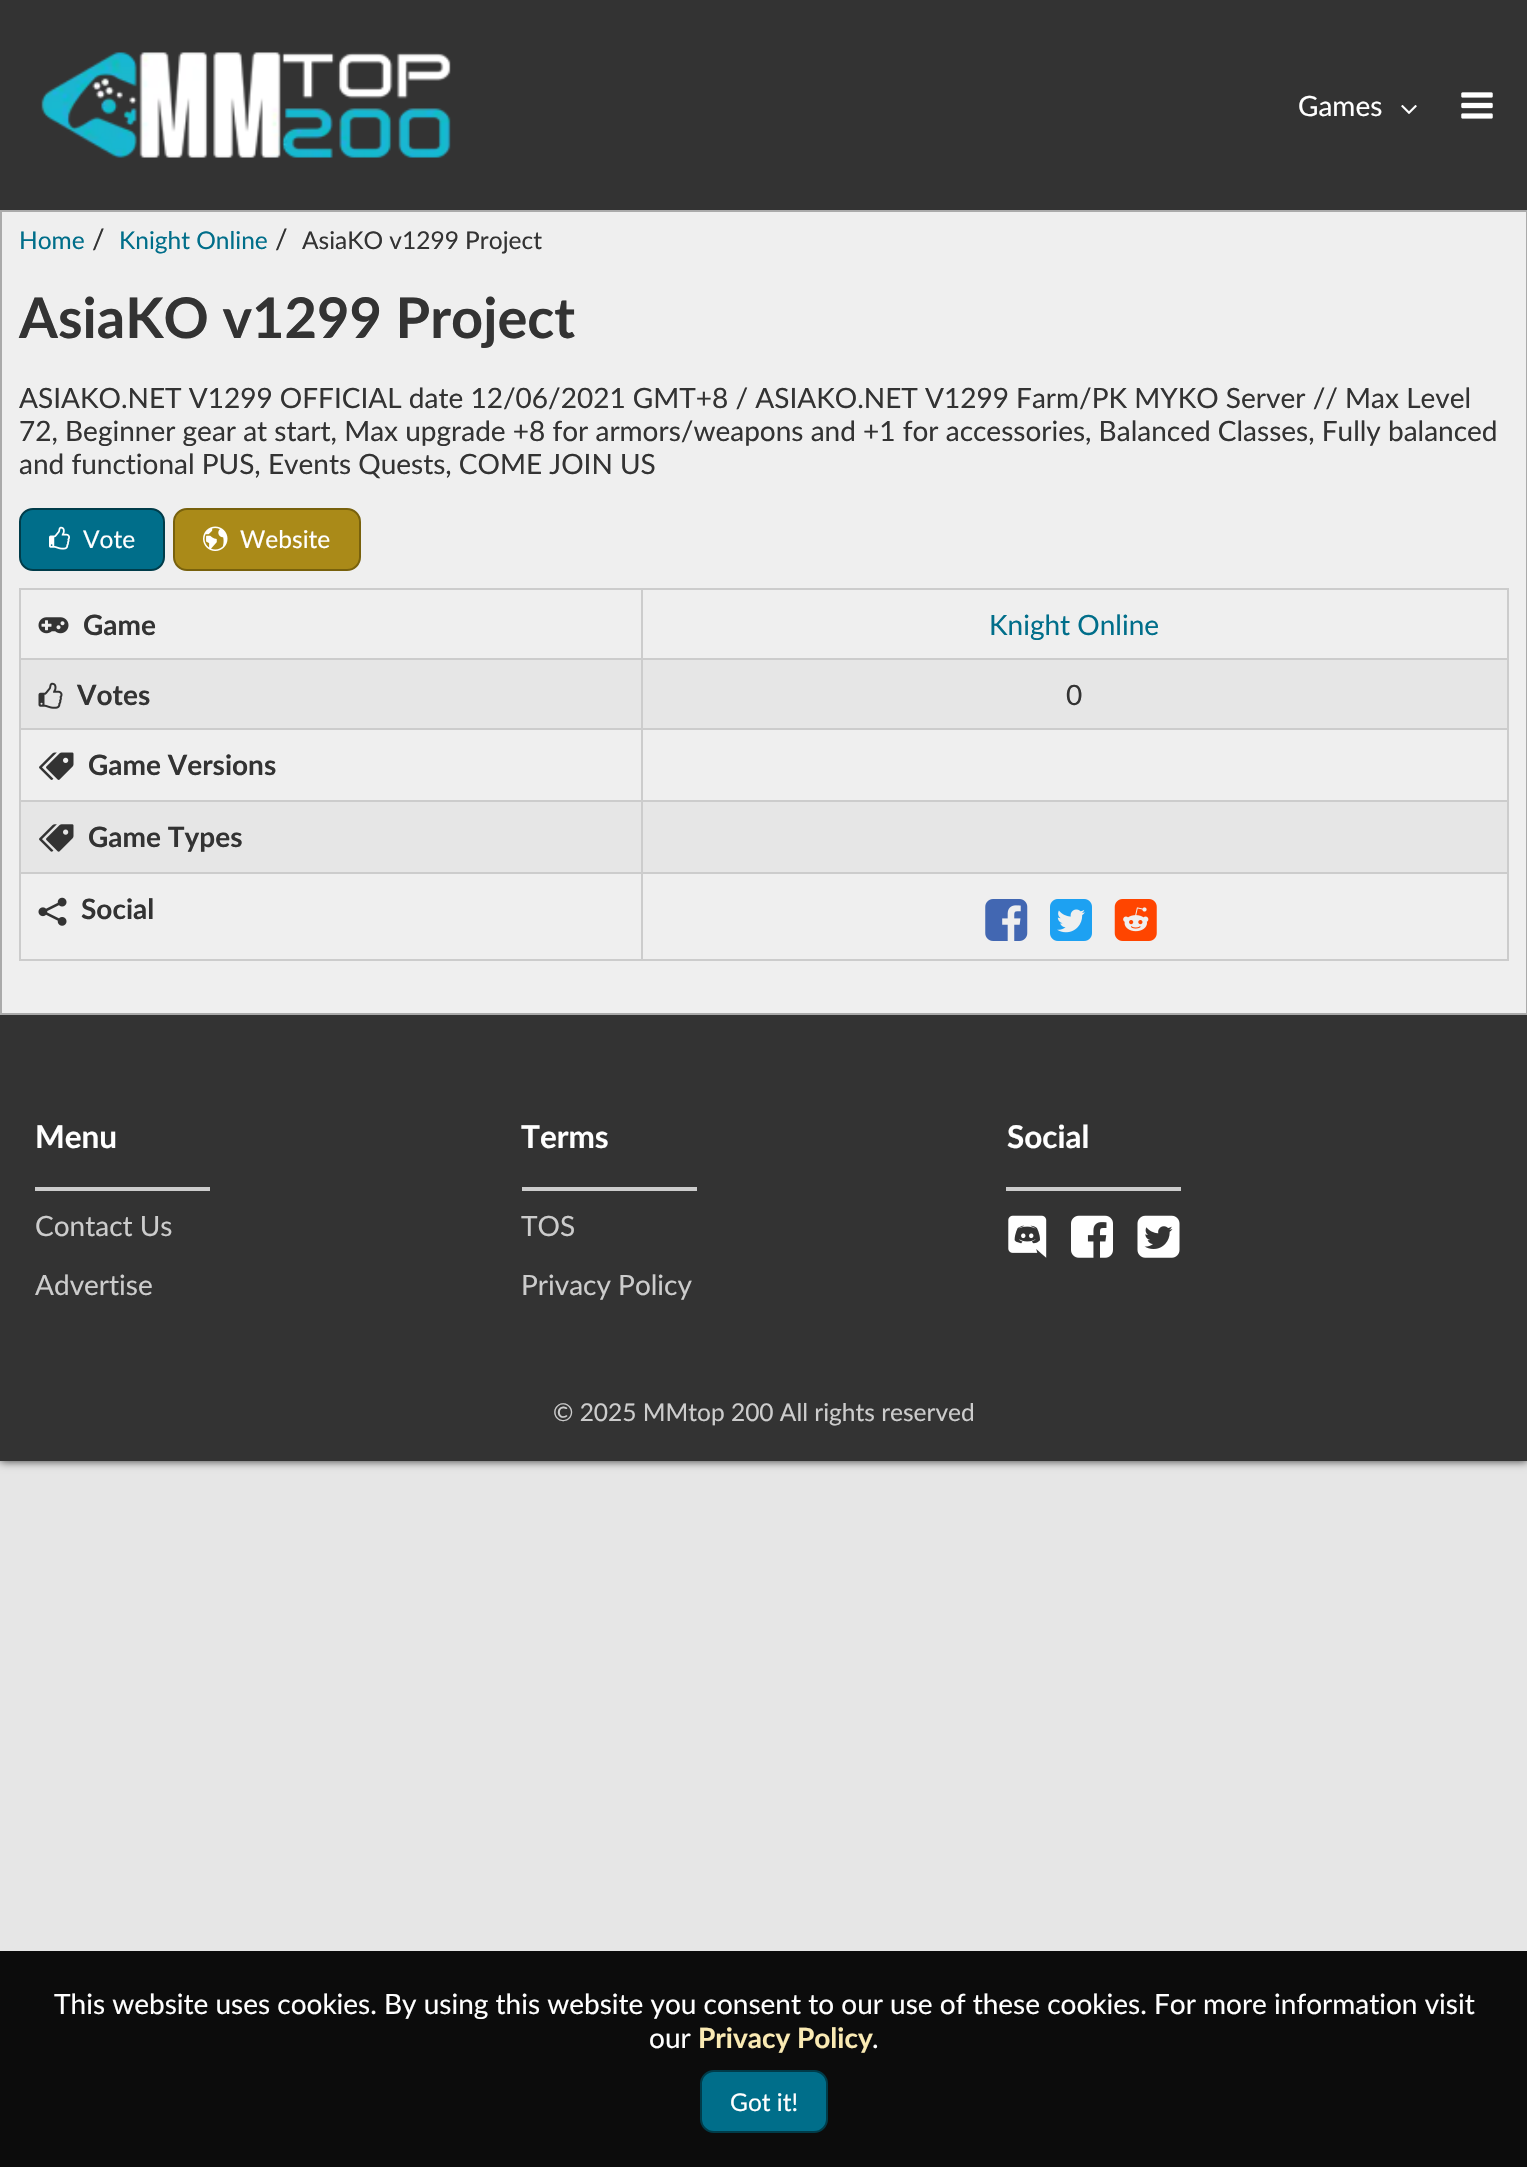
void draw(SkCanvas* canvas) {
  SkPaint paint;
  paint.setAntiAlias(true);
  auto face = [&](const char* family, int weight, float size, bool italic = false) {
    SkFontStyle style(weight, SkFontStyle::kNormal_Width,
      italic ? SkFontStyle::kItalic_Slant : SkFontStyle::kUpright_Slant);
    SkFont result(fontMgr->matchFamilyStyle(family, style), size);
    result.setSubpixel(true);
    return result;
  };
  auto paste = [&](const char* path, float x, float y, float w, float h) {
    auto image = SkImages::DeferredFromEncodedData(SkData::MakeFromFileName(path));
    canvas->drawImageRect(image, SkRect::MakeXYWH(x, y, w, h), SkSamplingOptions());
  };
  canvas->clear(0xffe6e6e6);
  paint.setColor(0xff333333);
  canvas->drawRect(SkRect::MakeXYWH(0, 0, 1527, 210), paint);
  paste("img/1.png", 41, 52, 410, 106);
  paste("img/2.png", 1401, 105, 16, 9);
  paste("img/3.png", 1461, 92, 32, 27);
  paint.setMaskFilter(SkMaskFilter::MakeBlur(kNormal_SkBlurStyle, 4.5f));
  canvas->drawRect(SkRect::MakeXYWH(0, 1015, 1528, 446), paint);
  paint.setMaskFilter(nullptr);
  paint.setColor(0xffefefef);
  canvas->drawRect(SkRect::MakeXYWH(1, 211, 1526, 803), paint);
  paint.setStroke(true);
  paint.setStrokeWidth(2);
  paint.setColor(0xffaaaaaa);
  canvas->drawRect(SkRect::MakeXYWH(1, 211, 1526, 803), paint);
  paint.setStroke(false);
  paint.setColor(0xff006e8a);
  canvas->drawRoundRect(SkRect::MakeXYWH(20, 509, 144, 61), 13, 13, paint);
  paint.setStroke(true);
  paint.setColor(0xff003c4a);
  canvas->drawRoundRect(SkRect::MakeXYWH(20, 509, 144, 61), 13, 13, paint);
  paste("img/4.png", 49, 526, 21, 24);
  paint.setStroke(false);
  paint.setColor(0xffaa8a18);
  canvas->drawRoundRect(SkRect::MakeXYWH(174, 509, 186, 61), 13, 13, paint);
  paint.setStroke(true);
  paint.setColor(0xff78610c);
  canvas->drawRoundRect(SkRect::MakeXYWH(174, 509, 186, 61), 13, 13, paint);
  paste("img/5.png", 203, 526, 25, 25);
  paint.setColor(0xffcccccc);
  canvas->drawRect(SkRect::MakeXYWH(20, 589, 1488, 70), paint);
  paste("img/6.png", 38, 617, 31, 17);
  paint.setStroke(false);
  {
    const struct { float x, y, w, h; SkColor color; } items[] = {
      {641, 590, 2, 68, 0xffcccccc},
      {21, 660, 1486, 68, 0xffe6e6e6},
      {1507, 660, 2, 213, 0xffcccccc},
      {19, 728, 1490, 2, 0xffcccccc},
      {19, 660, 2, 70, 0xffcccccc},
    };
    for (auto [x, y, w, h, color] : items) {
      paint.setColor(color);
      canvas->drawRect(SkRect::MakeXYWH(x, y, w, h), paint);
    }
  }
  paste("img/7.png", 38, 682, 25, 27);
  {
    const struct { float x, y, w, h; SkColor color; } items[] = {
      {641, 660, 2, 68, 0xffcccccc},
      {19, 800, 1490, 2, 0xffcccccc},
      {19, 730, 2, 72, 0xffcccccc},
    };
    for (auto [x, y, w, h, color] : items) {
      paint.setColor(color);
      canvas->drawRect(SkRect::MakeXYWH(x, y, w, h), paint);
    }
  }
  paste("img/8.png", 39, 752, 35, 28);
  {
    const struct { float x, y, w, h; SkColor color; } items[] = {
      {641, 730, 2, 70, 0xffcccccc},
      {21, 802, 1486, 70, 0xffe6e6e6},
      {19, 872, 1490, 2, 0xffcccccc},
      {19, 802, 2, 71, 0xffcccccc},
    };
    for (auto [x, y, w, h, color] : items) {
      paint.setColor(color);
      canvas->drawRect(SkRect::MakeXYWH(x, y, w, h), paint);
    }
  }
  paste("img/9.png", 39, 824, 35, 28);
  {
    const struct { float x, y, w, h; SkColor color; } items[] = {
      {641, 802, 2, 70, 0xffcccccc},
      {1507, 873, 2, 88, 0xffcccccc},
      {19, 959, 1490, 2, 0xffcccccc},
      {19, 873, 2, 88, 0xffcccccc},
    };
    for (auto [x, y, w, h, color] : items) {
      paint.setColor(color);
      canvas->drawRect(SkRect::MakeXYWH(x, y, w, h), paint);
    }
  }
  paste("img/10.png", 38, 897, 29, 29);
  canvas->drawRect(SkRect::MakeXYWH(641, 873, 2, 86), paint);
  paste("img/11.png", 985, 899, 43, 42);
  paste("img/12.png", 1050, 899, 42, 42);
  paste("img/13.png", 1114, 899, 43, 42);
  {
    const struct { float x, y, w, h; SkColor color; } items[] = {
      {0, 1015, 1527, 446, 0xff333333},
      {35, 1187, 175, 4, 0xffcccccc},
      {522, 1187, 175, 4, 0xffcccccc},
      {1006, 1187, 175, 4, 0xffcccccc},
    };
    for (auto [x, y, w, h, color] : items) {
      paint.setColor(color);
      canvas->drawRect(SkRect::MakeXYWH(x, y, w, h), paint);
    }
  }
  paste("img/14.png", 1008, 1215, 39, 43);
  paste("img/15.png", 1071, 1215, 42, 43);
  paste("img/16.png", 1137, 1215, 43, 43);
  paint.setColor(0xff0c0c0c);
  canvas->drawRect(SkRect::MakeXYWH(0, 1951, 1527, 216), paint);
  paint.setColor(0xff006e8a);
  canvas->drawRoundRect(SkRect::MakeXYWH(701, 2071, 126, 61), 13, 13, paint);
  paint.setStroke(true);
  paint.setColor(0xff003c4a);
  canvas->drawRoundRect(SkRect::MakeXYWH(701, 2071, 126, 61), 13, 13, paint);
  auto f0 = face("Lato", 400, 28);
  paint.setStroke(false);
  paint.setColor(0xffffffff);
  canvas->drawString("Games", 1298, 116, f0, paint);
  auto f1 = face("Lato", 400, 24.5f);
  paint.setColor(0xff006e8a);
  canvas->drawString("Home", 19, 249, f1, paint);
  paint.setColor(0xff333333);
  canvas->drawString("/", 92, 249, f0, paint);
  paint.setColor(0xff006e8a);
  canvas->drawString("Knight Online", 119, 249, f1, paint);
  paint.setColor(0xff333333);
  canvas->drawString("/", 275, 249, f0, paint);
  canvas->drawString("AsiaKO v1299 Project", 302, 249, f1, paint);
  auto f2 = face("Lato", 700, 56);
  canvas->drawString("AsiaKO v1299 Project", 19, 338, f2, paint);
  {
    const struct { const char* s; float x, y; } items[] = {
      {"ASIAKO.NET V1299 OFFICIAL date 12/06/2021 GMT+8 / ASIAKO.NET V1299 Farm/PK MYKO Server // Max Level", 19, 408},
      {"72, Beginner gear at start, Max upgrade +8 for armors/weapons and +1 for accessories, Balanced Classes, Fully balanced", 19, 441},
      {"and functional PUS, Events Quests, COME JOIN US", 19, 474},
    };
    for (auto [s, x, y] : items) {
      canvas->drawString(s, x, y, f0, paint);
    }
  }
  paint.setColor(0xffffffff);
  canvas->drawString("Vote", 83, 548, f1, paint);
  canvas->drawString("Website", 240, 548, f1, paint);
  auto f3 = face("Lato", 700, 28);
  paint.setColor(0xff333333);
  canvas->drawString("Game", 83, 635, f3, paint);
  paint.setColor(0xff006e8a);
  canvas->drawString("Knight Online", 989, 635, f0, paint);
  paint.setColor(0xff333333);
  canvas->drawString("Votes", 77, 705, f3, paint);
  canvas->drawString("0", 1066, 705, f0, paint);
  {
    const struct { const char* s; float x, y; } items[] = {
      {"Game Versions", 88, 775},
      {"Game Types", 88, 847},
      {"Social", 81, 919},
    };
    for (auto [s, x, y] : items) {
      canvas->drawString(s, x, y, f3, paint);
    }
  }
  auto f4 = face("Lato", 700, 31.5f);
  paint.setColor(0xffffffff);
  canvas->drawString("Menu", 35, 1148, f4, paint);
  paint.setColor(0xffcccccc);
  canvas->drawString("Contact Us", 35, 1236, f0, paint);
  canvas->drawString("Advertise", 35, 1295, f0, paint);
  paint.setColor(0xffffffff);
  canvas->drawString("Terms", 521, 1148, f4, paint);
  paint.setColor(0xffcccccc);
  canvas->drawString("TOS", 521, 1236, f0, paint);
  canvas->drawString("Privacy Policy", 521, 1295, f0, paint);
  paint.setColor(0xffffffff);
  canvas->drawString("Social", 1007, 1148, f4, paint);
  paint.setColor(0xffcccccc);
  canvas->drawString("© 2025 MMtop 200 All rights reserved", 553, 1421, f1, paint);
  paint.setColor(0xffffffff);
  canvas->drawString("This website uses cookies. By using this website you consent to our use of these cookies. For more information visit", 54, 2014, f0, paint);
  canvas->drawString("our", 649, 2048, f0, paint);
  paint.setColor(0xfffaeab3);
  canvas->drawString("Privacy Policy", 698, 2048, f3, paint);
  paint.setColor(0xffffffff);
  canvas->drawString(".", 872, 2048, f0, paint);
  canvas->drawString("Got it!", 730, 2111, f1, paint);
}
